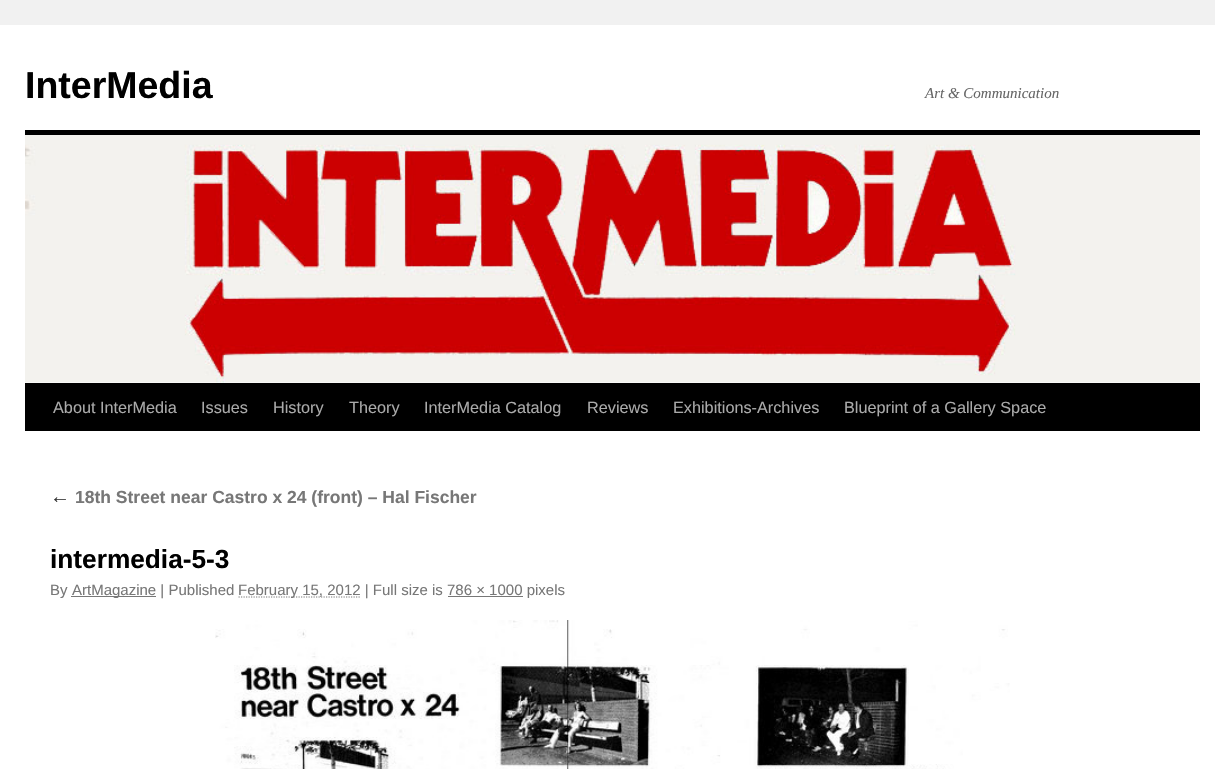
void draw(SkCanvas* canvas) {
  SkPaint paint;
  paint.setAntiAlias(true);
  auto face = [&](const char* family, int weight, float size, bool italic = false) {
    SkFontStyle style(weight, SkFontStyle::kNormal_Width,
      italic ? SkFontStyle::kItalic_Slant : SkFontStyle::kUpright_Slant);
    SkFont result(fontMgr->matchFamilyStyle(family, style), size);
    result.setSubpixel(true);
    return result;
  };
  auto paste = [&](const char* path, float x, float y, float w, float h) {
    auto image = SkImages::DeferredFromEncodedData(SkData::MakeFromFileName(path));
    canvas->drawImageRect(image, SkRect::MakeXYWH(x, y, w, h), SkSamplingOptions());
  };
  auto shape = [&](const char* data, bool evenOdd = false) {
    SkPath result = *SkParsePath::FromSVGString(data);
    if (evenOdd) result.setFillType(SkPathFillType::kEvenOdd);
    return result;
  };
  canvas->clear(0xfff1f1f1);
  {
    const struct { float x, y, w, h; SkColor color; } items[] = {
      {0, 25, 1215, 744, 0xffffffff},
      {25, 130, 1175, 5, 0xff000000},
      {25, 383, 1175, 48, 0xff000000},
    };
    for (auto [x, y, w, h, color] : items) {
      paint.setColor(color);
      canvas->drawRect(SkRect::MakeXYWH(x, y, w, h), paint);
    }
  }
  paste("img/1.png", 25, 135, 1175, 248);
  paint.setColor(0xff777777);
  canvas->drawRect(SkRect::MakeXYWH(71, 596, 85, 1), paint);
  paint.setStroke(true);
  paint.setStrokeWidth(1.2f);
  paint.setPathEffect(SkDashPathEffect::Make({{1.25f, 1.25f}}, 0));
  canvas->drawPath(shape("M238.5 597H361"), paint);
  paint.setPathEffect(nullptr);
  paint.setStroke(false);
  canvas->drawRect(SkRect::MakeXYWH(448, 596, 75, 1), paint);
  paste("img/2.png", 215, 620, 795, 149);
  auto f0 = face("Liberation Sans", 700, 37.5f);
  paint.setColor(0xff000000);
  canvas->drawString("InterMedia", 25, 98, f0, paint);
  auto f1 = face("Liberation Serif", 400, 15, true);
  paint.setColor(0xff666666);
  canvas->drawString("Art & Communication", 925, 98, f1, paint);
  auto f2 = face("Liberation Sans", 400, 16.25f);
  paint.setColor(0xffaaaaaa);
  {
    const struct { const char* s; float x, y; } items[] = {
      {"About InterMedia", 53, 413},
      {"Issues", 201, 413},
      {"History", 273, 413},
      {"Theory", 349, 413},
      {"InterMedia Catalog", 424, 413},
      {"Reviews", 587, 413},
      {"Exhibitions-Archives", 673, 413},
      {"Blueprint of a Gallery Space", 844, 413},
    };
    for (auto [s, x, y] : items) {
      canvas->drawString(s, x, y, f2, paint);
    }
  }
  auto f3 = face("Liberation Serif", 400, 20, true);
  paint.setColor(0xff333333);
  canvas->drawString("←", 50, 503, f3, paint);
  auto f4 = face("Liberation Sans", 700, 17.5f);
  paint.setColor(0xff777777);
  canvas->drawString("18th Street near Castro x 24 (front) – Hal Fischer", 75, 503, f4, paint);
  auto f5 = face("Liberation Sans", 700, 26.25f);
  paint.setColor(0xff000000);
  canvas->drawString("intermedia-5-3", 50, 568, f5, paint);
  auto f6 = face("Liberation Sans", 400, 15);
  paint.setColor(0xff777777);
  {
    const struct { const char* s; float x, y; } items[] = {
      {"By", 50, 595},
      {"ArtMagazine | Published", 72, 595},
      {"February 15, 2012 | Full size is 786 × 1000 pixels", 238, 595},
    };
    for (auto [s, x, y] : items) {
      canvas->drawString(s, x, y, f6, paint);
    }
  }
}
